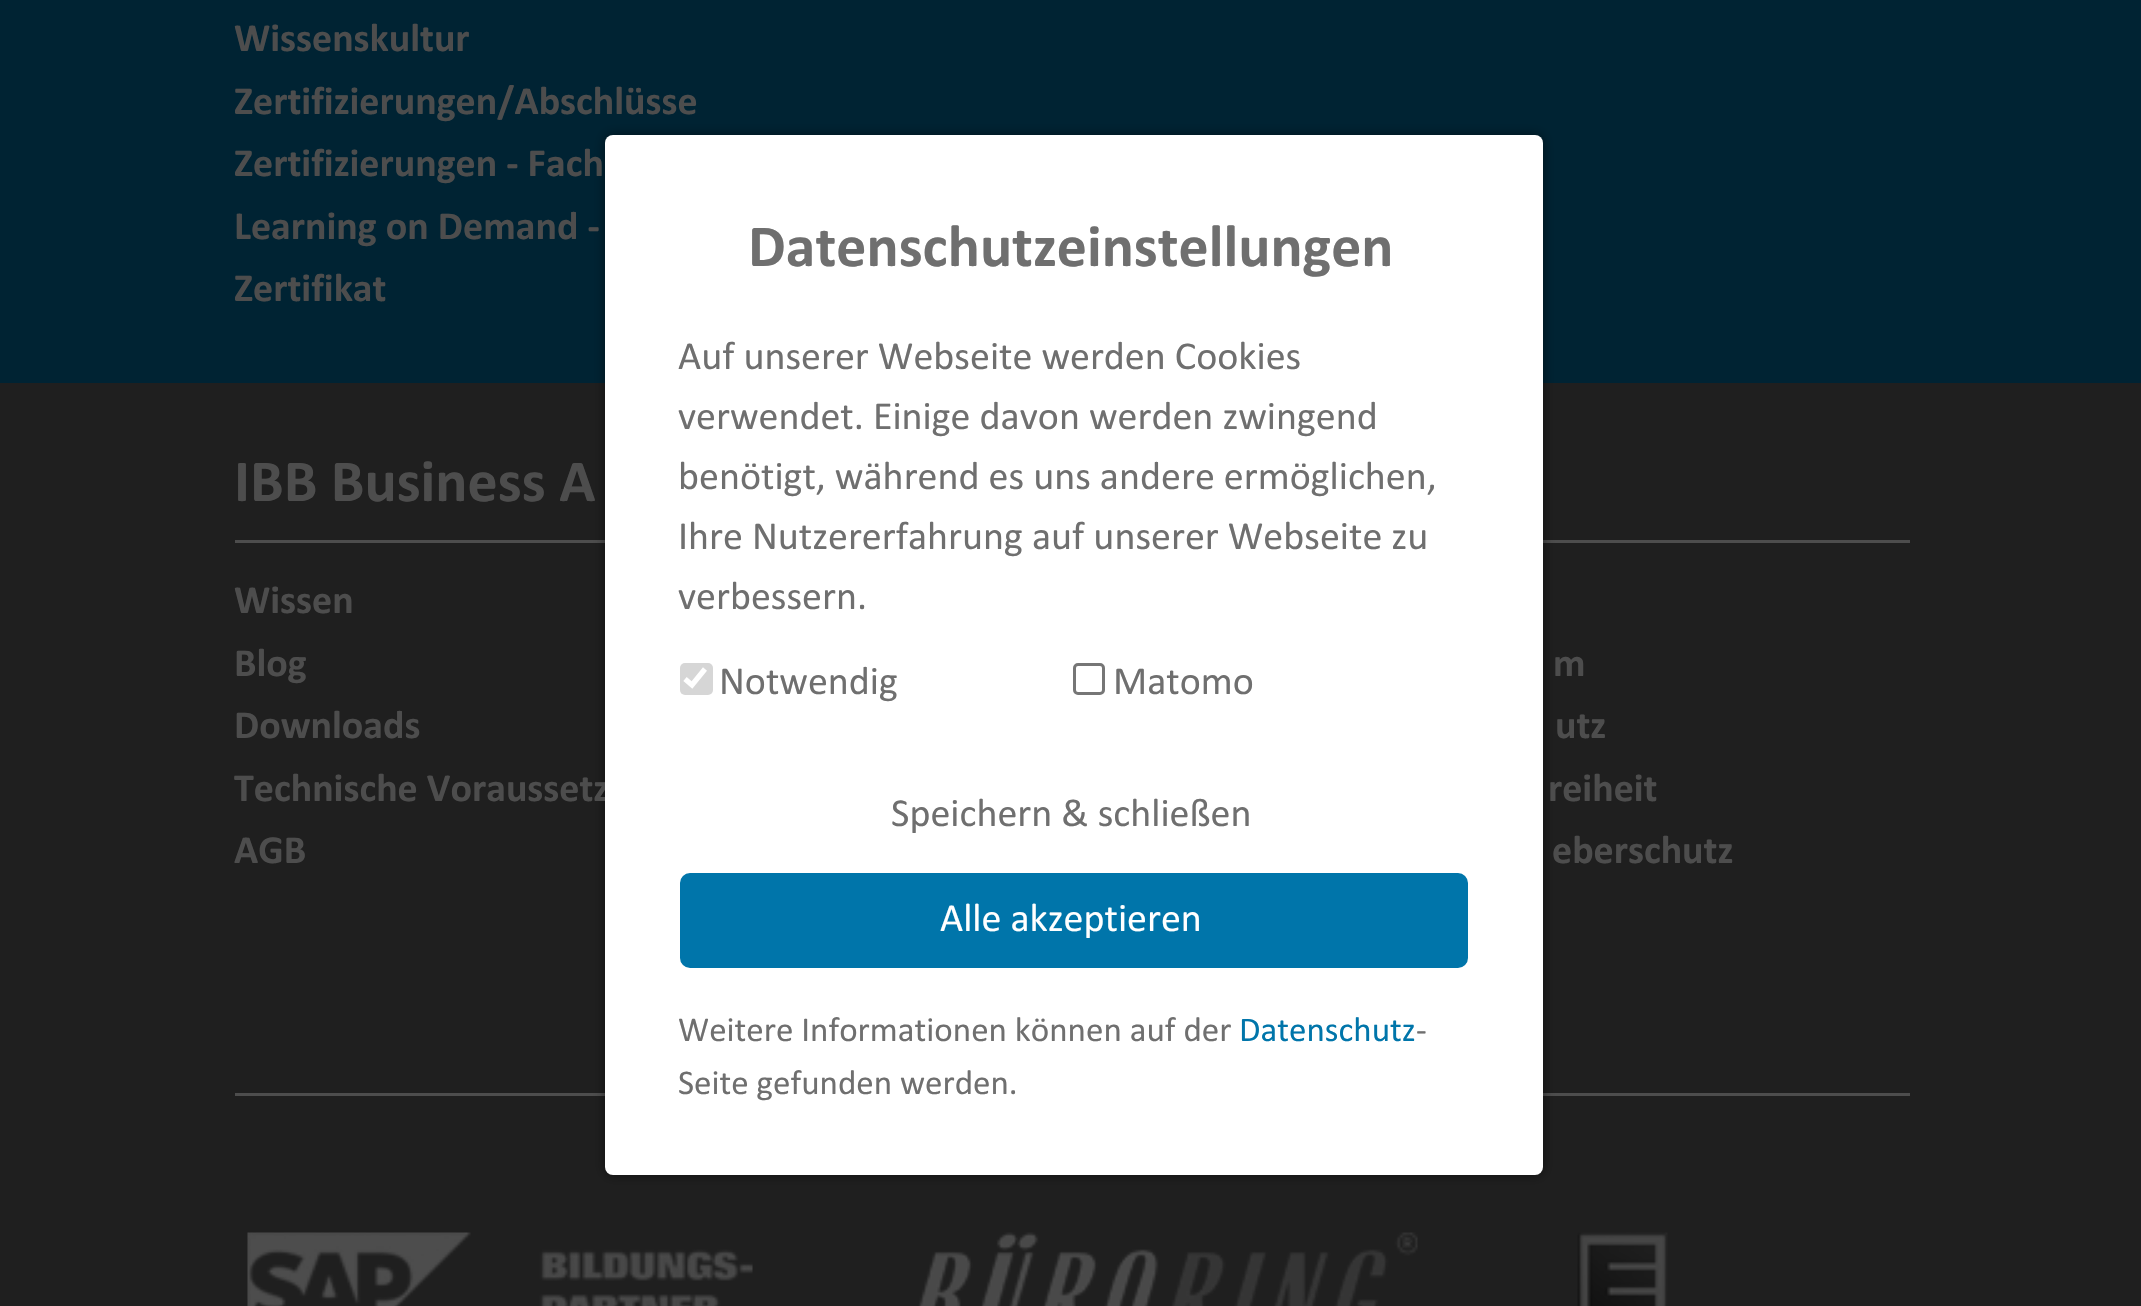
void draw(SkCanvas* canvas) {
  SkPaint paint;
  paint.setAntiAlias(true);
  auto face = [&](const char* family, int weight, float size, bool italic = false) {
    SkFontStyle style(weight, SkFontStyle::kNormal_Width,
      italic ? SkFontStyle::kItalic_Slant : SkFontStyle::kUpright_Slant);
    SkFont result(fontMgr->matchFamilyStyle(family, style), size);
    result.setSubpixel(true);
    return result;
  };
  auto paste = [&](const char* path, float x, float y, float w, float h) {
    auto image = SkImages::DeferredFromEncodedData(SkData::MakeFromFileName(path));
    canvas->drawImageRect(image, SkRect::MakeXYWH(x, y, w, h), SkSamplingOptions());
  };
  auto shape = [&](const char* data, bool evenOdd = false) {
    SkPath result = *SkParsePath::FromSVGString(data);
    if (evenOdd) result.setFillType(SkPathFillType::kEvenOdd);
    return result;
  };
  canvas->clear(0xff002333);
  {
    const struct { float x, y, w, h; SkColor color; } items[] = {
      {0, 383, 2141, 923, 0xff1f1f1f},
      {235, 540, 1675, 3, 0xff4d4d4d},
      {235, 1093, 1675, 3, 0xff4d4d4d},
    };
    for (auto [x, y, w, h, color] : items) {
      paint.setColor(color);
      canvas->drawRect(SkRect::MakeXYWH(x, y, w, h), paint);
    }
  }
  paste("img/1.png", 247, 1232, 506, 74);
  paste("img/2.png", 918, 1232, 500, 74);
  paste("img/3.png", 1577, 1232, 91, 74);
  paint.setColor(0x80000000);
  paint.setMaskFilter(SkMaskFilter::MakeBlur(kNormal_SkBlurStyle, 6));
  canvas->drawRoundRect(SkRect::MakeXYWH(605, 135, 938, 1040), 8, 8, paint);
  paint.setMaskFilter(nullptr);
  auto f0 = face("Calibri", 700, 40);
  paint.setColor(0xff4d4d4d);
  {
    const struct { const char* s; float x, y; } items[] = {
      {"Wissenskultur", 234, 51},
      {"Zertifizierungen/Abschlüsse", 234, 114},
      {"Zertifizierungen - Fach", 234, 176},
      {"Learning on Demand -", 234, 239},
      {"Zertifikat", 234, 301},
    };
    for (auto [s, x, y] : items) {
      canvas->drawString(s, x, y, f0, paint);
    }
  }
  auto f1 = face("Calibri", 700, 60);
  canvas->drawString("IBB Business A", 234, 501, f1, paint);
  {
    const struct { const char* s; float x, y; } items[] = {
      {"Wissen", 234, 613},
      {"Blog", 234, 676},
      {"Downloads", 234, 738},
      {"Technische Voraussetz", 234, 801},
      {"AGB", 234, 863},
      {"m", 1553, 676},
      {"utz", 1555, 738},
      {"reiheit", 1548, 801},
      {"eberschutz", 1552, 863},
    };
    for (auto [s, x, y] : items) {
      canvas->drawString(s, x, y, f0, paint);
    }
  }
  paint.setColor(0xffffffff);
  canvas->drawRoundRect(SkRect::MakeXYWH(605, 135, 938, 1040), 8, 8, paint);
  paint.setColor(0xff6f6f6f);
  canvas->drawString("Datenschutzeinstellungen", 748, 266, f1, paint);
  auto f2 = face("Calibri", 400, 40);
  {
    const struct { const char* s; float x, y; } items[] = {
      {"Auf unserer Webseite werden Cookies", 678, 369},
      {"verwendet. Einige davon werden zwingend", 678, 429},
      {"benötigt, während es uns andere ermöglichen,", 678, 489},
      {"Ihre Nutzererfahrung auf unserer Webseite zu", 678, 549},
      {"verbessern.", 678, 609},
    };
    for (auto [s, x, y] : items) {
      canvas->drawString(s, x, y, f2, paint);
    }
  }
  paint.setColor(0xffd6d6d6);
  canvas->drawRoundRect(SkRect::MakeXYWH(680, 663, 33, 32), 5, 5, paint);
  paint.setStroke(true);
  paint.setStrokeWidth(5.2f);
  paint.setColor(0xffffffff);
  canvas->drawPath(shape("M685 679L692 685L705 669"), paint);
  paint.setStroke(false);
  paint.setColor(0xff6f6f6f);
  canvas->drawString("Notwendig", 719, 694, f2, paint);
  paint.setStroke(true);
  paint.setStrokeWidth(3);
  paint.setColor(0xff767676);
  canvas->drawRoundRect(SkRect::MakeXYWH(1074.5f, 664.5f, 29, 29), 3.5f, 3.5f, paint);
  paint.setStroke(false);
  paint.setColor(0xff6f6f6f);
  canvas->drawString("Matomo", 1113, 694, f2, paint);
  canvas->drawString("Speichern & schließen", 891, 826, f2, paint);
  paint.setColor(0xff0075aa);
  canvas->drawRoundRect(SkRect::MakeXYWH(681.5f, 874.5f, 785, 92), 8.5f, 8.5f, paint);
  paint.setStroke(true);
  canvas->drawRoundRect(SkRect::MakeXYWH(681.5f, 874.5f, 785, 92), 8.5f, 8.5f, paint);
  paint.setStroke(false);
  paint.setColor(0xffffffff);
  canvas->drawString("Alle akzeptieren", 940, 931, f2, paint);
  auto f3 = face("Calibri", 400, 35);
  paint.setColor(0xff6f6f6f);
  canvas->drawString("Weitere Informationen können auf der", 678, 1041, f3, paint);
  paint.setColor(0xff0075aa);
  canvas->drawString("Datenschutz", 1239, 1041, f3, paint);
  paint.setColor(0xff6f6f6f);
  canvas->drawString("-", 1416, 1041, f3, paint);
  canvas->drawString("Seite gefunden werden.", 678, 1094, f3, paint);
}
